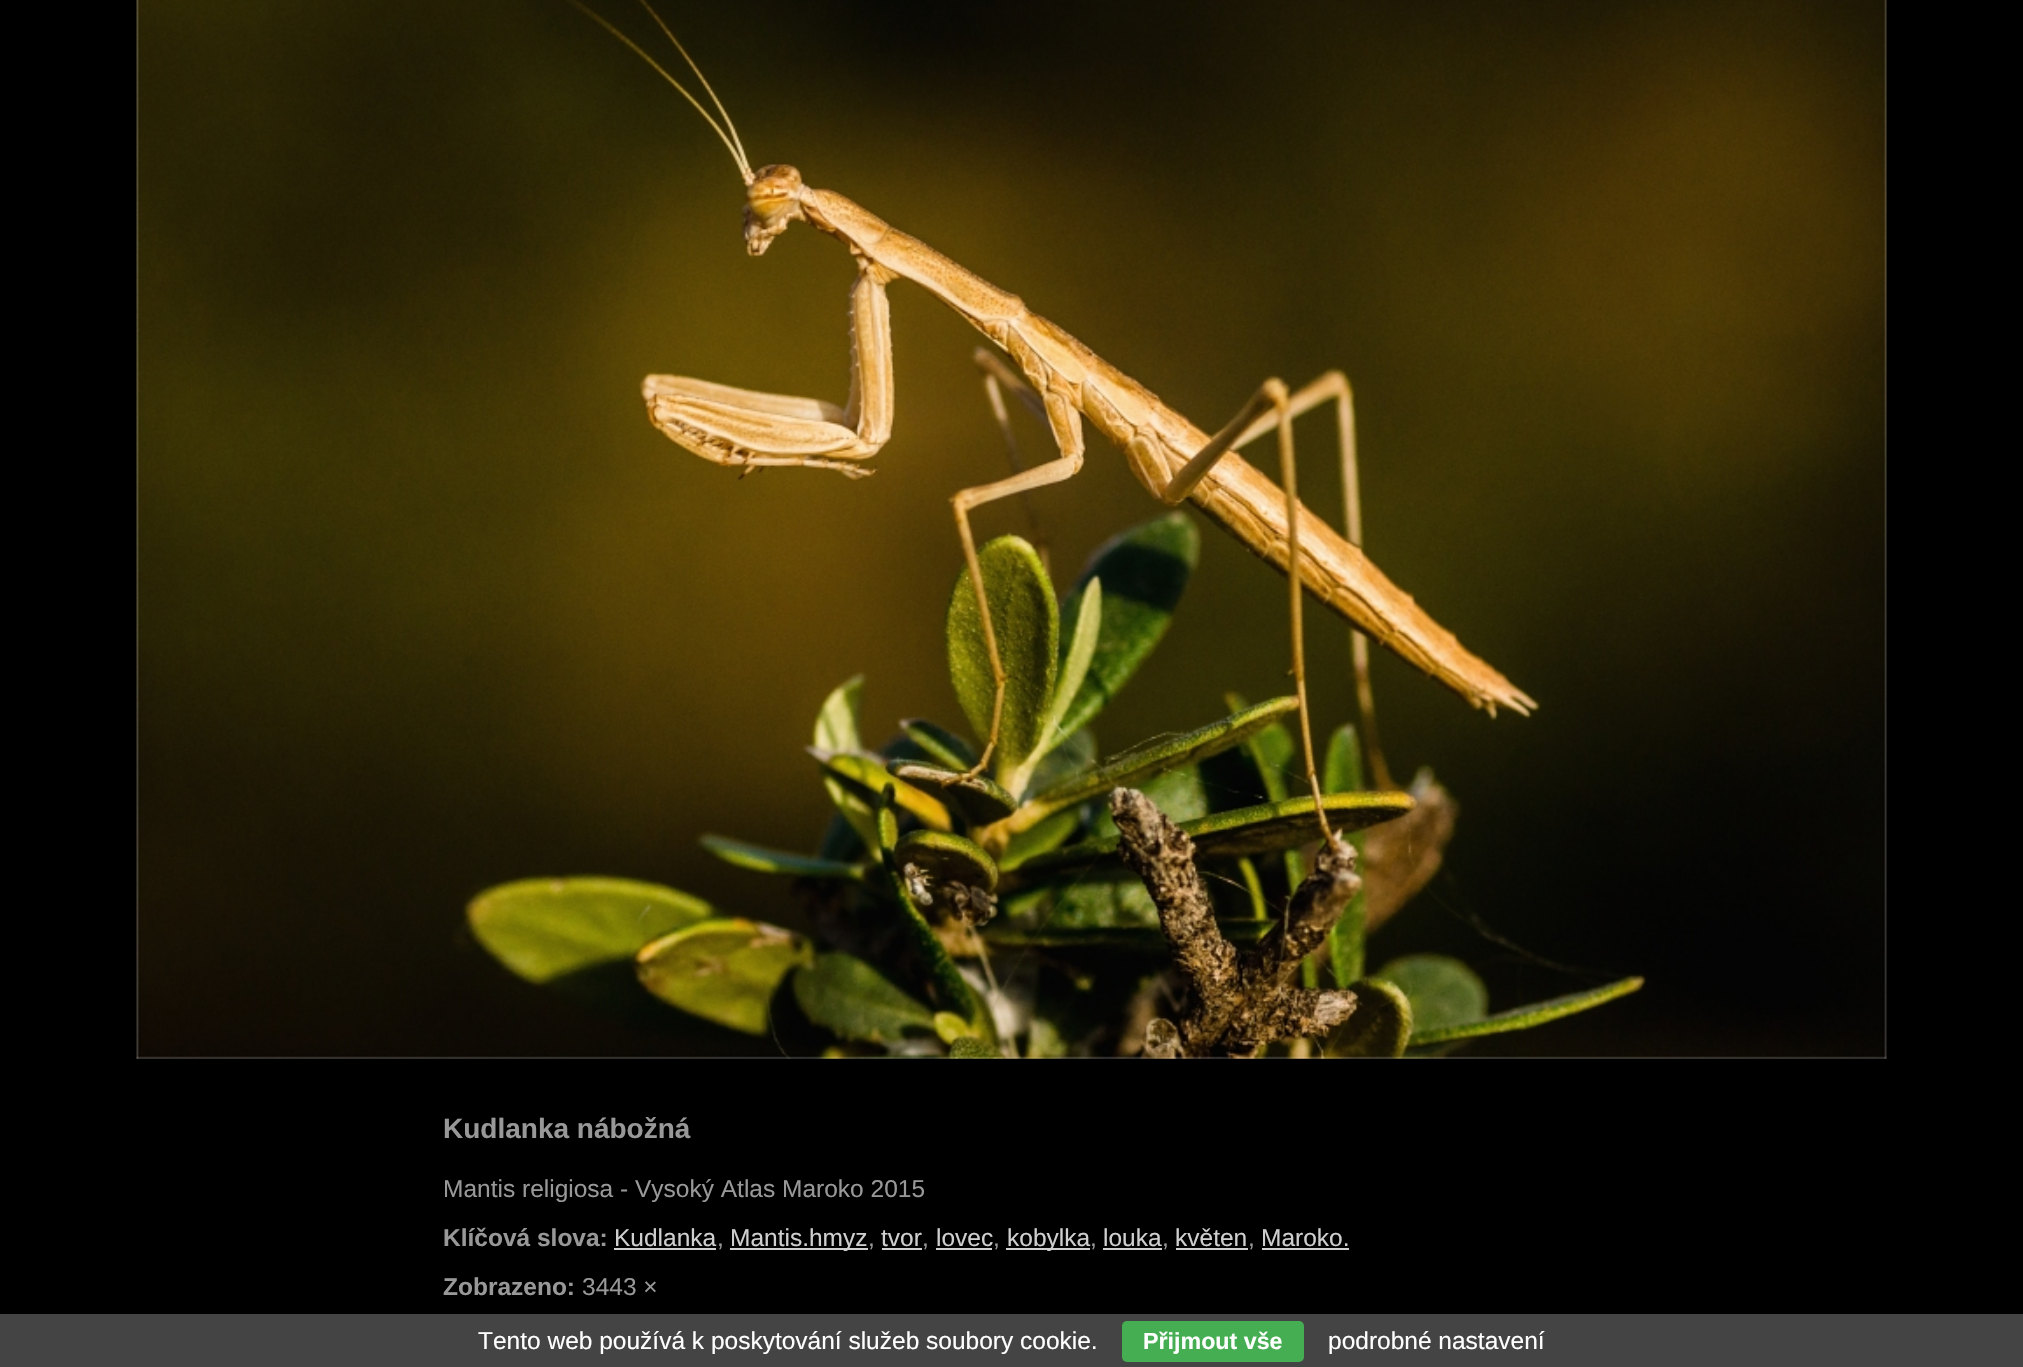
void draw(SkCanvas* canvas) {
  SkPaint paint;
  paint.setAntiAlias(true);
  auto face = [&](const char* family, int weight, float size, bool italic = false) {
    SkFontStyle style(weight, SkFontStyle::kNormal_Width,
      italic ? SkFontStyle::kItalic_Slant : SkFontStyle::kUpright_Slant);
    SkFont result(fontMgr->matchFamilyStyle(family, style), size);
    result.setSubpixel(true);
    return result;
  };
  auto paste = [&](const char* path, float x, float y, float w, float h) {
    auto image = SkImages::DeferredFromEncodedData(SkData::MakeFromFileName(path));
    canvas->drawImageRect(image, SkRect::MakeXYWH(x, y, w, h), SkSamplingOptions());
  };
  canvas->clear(0xff000000);
  paste("img/1.png", 136, 0, 1751, 1059);
  {
    const struct { float x, y, w, h; SkColor color; } items[] = {
      {614, 1248, 102, 2, 0xffcfcfcf},
      {730, 1248, 138, 2, 0xffcfcfcf},
      {882, 1248, 40, 2, 0xffcfcfcf},
      {936, 1248, 56, 2, 0xffcfcfcf},
      {1006, 1248, 84, 2, 0xffcfcfcf},
      {1103, 1248, 59, 2, 0xffcfcfcf},
      {1176, 1248, 72, 2, 0xffcfcfcf},
      {1262, 1248, 87, 2, 0xffcfcfcf},
      {0, 1314, 2023, 53, 0xff444444},
    };
    for (auto [x, y, w, h, color] : items) {
      paint.setColor(color);
      canvas->drawRect(SkRect::MakeXYWH(x, y, w, h), paint);
    }
  }
  paint.setColor(0xff45ae52);
  canvas->drawRoundRect(SkRect::MakeXYWH(1122, 1321, 182, 41), 5, 5, paint);
  auto f0 = face("Liberation Sans", 700, 28);
  paint.setColor(0xff989898);
  canvas->drawString("Kudlanka nábožná", 443, 1138, f0, paint);
  auto f1 = face("Liberation Sans", 400, 24.5f);
  canvas->drawString("Mantis religiosa - Vysoký Atlas Maroko 2015", 443, 1197, f1, paint);
  auto f2 = face("Liberation Sans", 700, 24.5f);
  canvas->drawString("Klíčová slova:", 443, 1246, f2, paint);
  paint.setColor(0xffcfcfcf);
  canvas->drawString("Kudlanka", 614, 1246, f1, paint);
  paint.setColor(0xff989898);
  canvas->drawString(",", 717, 1246, f1, paint);
  paint.setColor(0xffcfcfcf);
  canvas->drawString("Mantis.hmyz", 730, 1246, f1, paint);
  paint.setColor(0xff989898);
  canvas->drawString(",", 868, 1246, f1, paint);
  paint.setColor(0xffcfcfcf);
  canvas->drawString("tvor", 881, 1246, f1, paint);
  paint.setColor(0xff989898);
  canvas->drawString(",", 922, 1246, f1, paint);
  paint.setColor(0xffcfcfcf);
  canvas->drawString("lovec", 936, 1246, f1, paint);
  paint.setColor(0xff989898);
  canvas->drawString(",", 993, 1246, f1, paint);
  paint.setColor(0xffcfcfcf);
  canvas->drawString("kobylka", 1007, 1246, f1, paint);
  paint.setColor(0xff989898);
  canvas->drawString(",", 1090, 1246, f1, paint);
  paint.setColor(0xffcfcfcf);
  canvas->drawString("louka", 1103, 1246, f1, paint);
  paint.setColor(0xff989898);
  canvas->drawString(",", 1162, 1246, f1, paint);
  paint.setColor(0xffcfcfcf);
  canvas->drawString("květen", 1175, 1246, f1, paint);
  paint.setColor(0xff989898);
  canvas->drawString(",", 1248, 1246, f1, paint);
  paint.setColor(0xffcfcfcf);
  canvas->drawString("Maroko.", 1261, 1246, f1, paint);
  paint.setColor(0xff989898);
  canvas->drawString("Zobrazeno:", 443, 1295, f2, paint);
  canvas->drawString("3443 ×", 582, 1295, f1, paint);
  paint.setColor(0xffffffff);
  canvas->drawString("Tento web používá k poskytování služeb soubory cookie.", 478, 1349, f1, paint);
  auto f3 = face("Liberation Sans", 700, 23.25f);
  canvas->drawString("Přijmout vše", 1143, 1349, f3, paint);
  canvas->drawString("podrobné nastavení", 1328, 1349, f1, paint);
}
